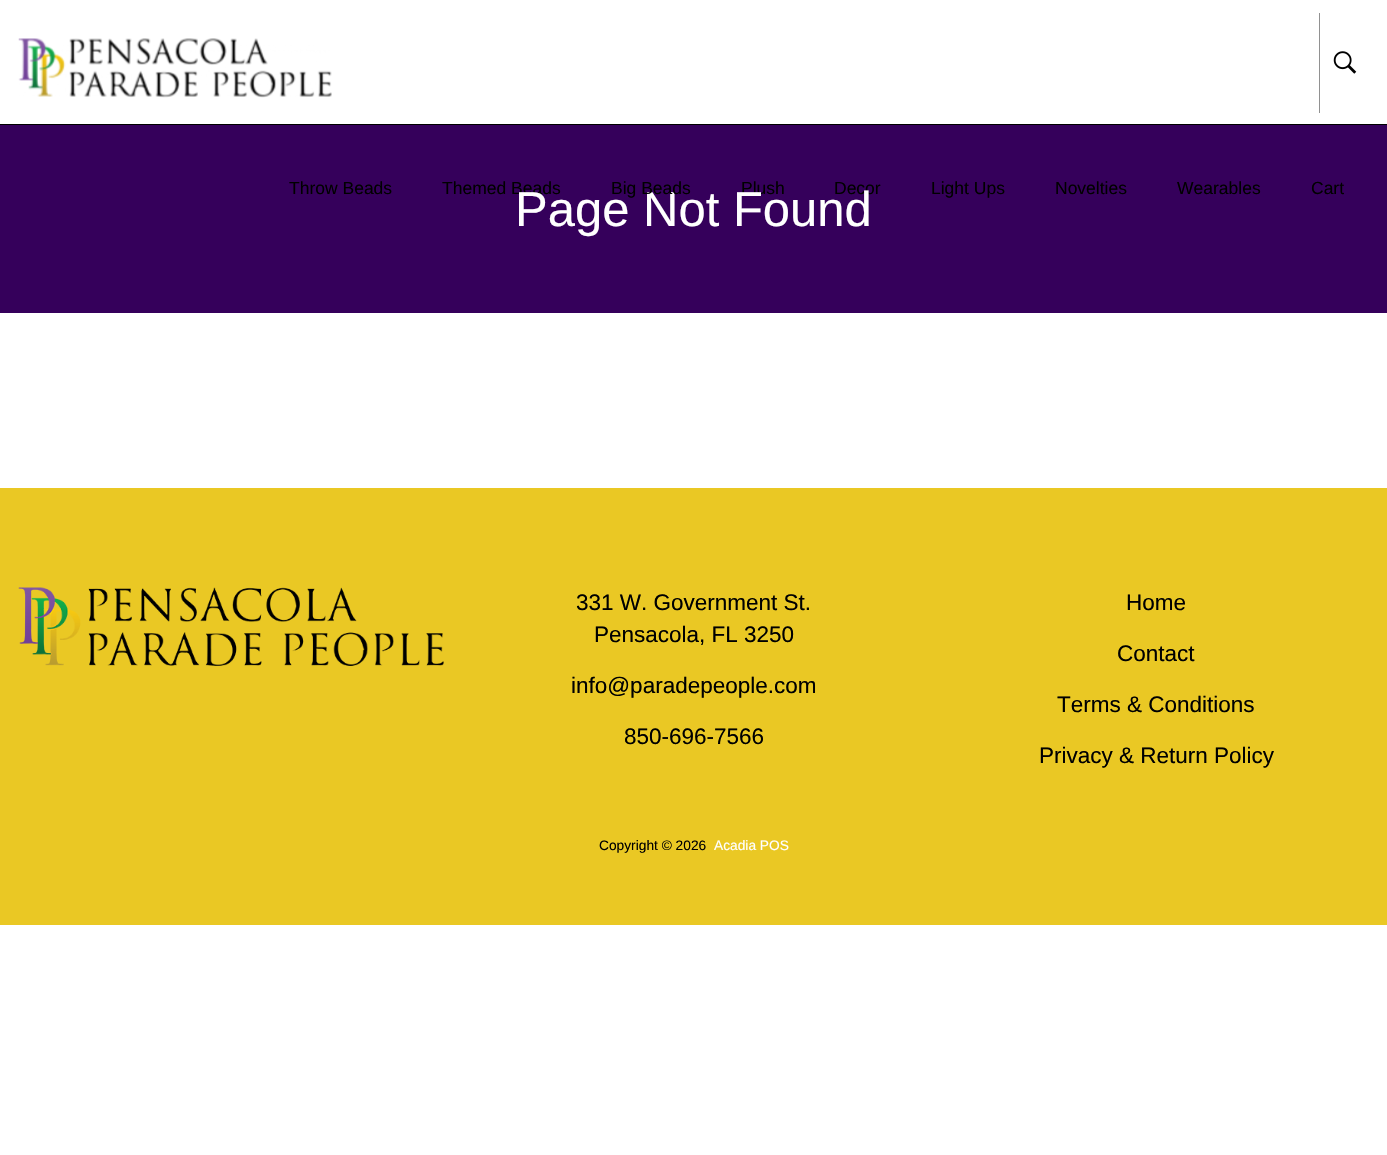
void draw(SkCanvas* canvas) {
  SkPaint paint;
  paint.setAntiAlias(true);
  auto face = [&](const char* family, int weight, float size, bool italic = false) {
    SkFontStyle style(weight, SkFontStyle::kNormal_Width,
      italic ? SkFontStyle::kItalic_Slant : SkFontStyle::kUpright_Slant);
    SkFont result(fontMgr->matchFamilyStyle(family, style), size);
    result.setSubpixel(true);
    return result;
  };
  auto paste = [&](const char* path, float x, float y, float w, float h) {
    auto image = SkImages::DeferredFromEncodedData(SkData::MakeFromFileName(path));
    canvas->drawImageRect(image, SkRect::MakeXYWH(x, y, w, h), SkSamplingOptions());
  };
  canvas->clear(0xffffffff);
  paint.setColor(0xff000000);
  canvas->drawRect(SkRect::MakeXYWH(0, 124, 1387, 1), paint);
  paste("img/1.png", 18, 38, 314, 60);
  paint.setColor(0xff919191);
  canvas->drawRect(SkRect::MakeXYWH(1319, 13, 1, 100), paint);
  paste("img/2.png", 1333, 51, 24, 23);
  paint.setColor(0xff35005b);
  canvas->drawRect(SkRect::MakeXYWH(0, 125, 1387, 188), paint);
  paint.setColor(0xffeac824);
  canvas->drawRect(SkRect::MakeXYWH(0, 488, 1387, 437), paint);
  paste("img/3.png", 18, 587, 426, 79);
  auto f0 = face("Liberation Sans", 400, 17.5f);
  paint.setColor(0xff000000);
  {
    const struct { const char* s; float x, y; } items[] = {
      {"Throw Beads", 289, 194},
      {"Themed Beads", 442, 194},
      {"Plush", 741, 194},
      {"Decor", 834, 194},
      {"Light Ups", 931, 194},
      {"Novelties", 1055, 194},
      {"Wearables", 1177, 194},
      {"Cart", 1311, 194},
    };
    for (auto [s, x, y] : items) {
      canvas->drawString(s, x, y, f0, paint);
    }
  }
  auto f1 = face("Liberation Sans", 400, 49);
  paint.setColor(0xffffffff);
  canvas->drawString("Page Not Found", 515, 226, f1, paint);
  paint.setColor(0xff000000);
  canvas->drawString("Big Beads", 611, 194, f0, paint);
  auto f2 = face("Liberation Sans", 400, 22.5f);
  {
    const struct { const char* s; float x, y; } items[] = {
      {"331 W. Government St.", 576, 610},
      {"Pensacola, FL 3250", 594, 642},
      {"info@paradepeople.com", 571, 693},
      {"850-696-7566", 624, 744},
      {"Home", 1126, 610},
      {"Contact", 1117, 661},
      {"Terms & Conditions", 1057, 712},
      {"Privacy & Return Policy", 1039, 763},
    };
    for (auto [s, x, y] : items) {
      canvas->drawString(s, x, y, f2, paint);
    }
  }
  auto f3 = face("Liberation Sans", 400, 13.75f);
  canvas->drawString("Copyright © 2026", 599, 850, f3, paint);
  paint.setColor(0xffffffff);
  canvas->drawString("Acadia POS", 714, 850, f3, paint);
}
